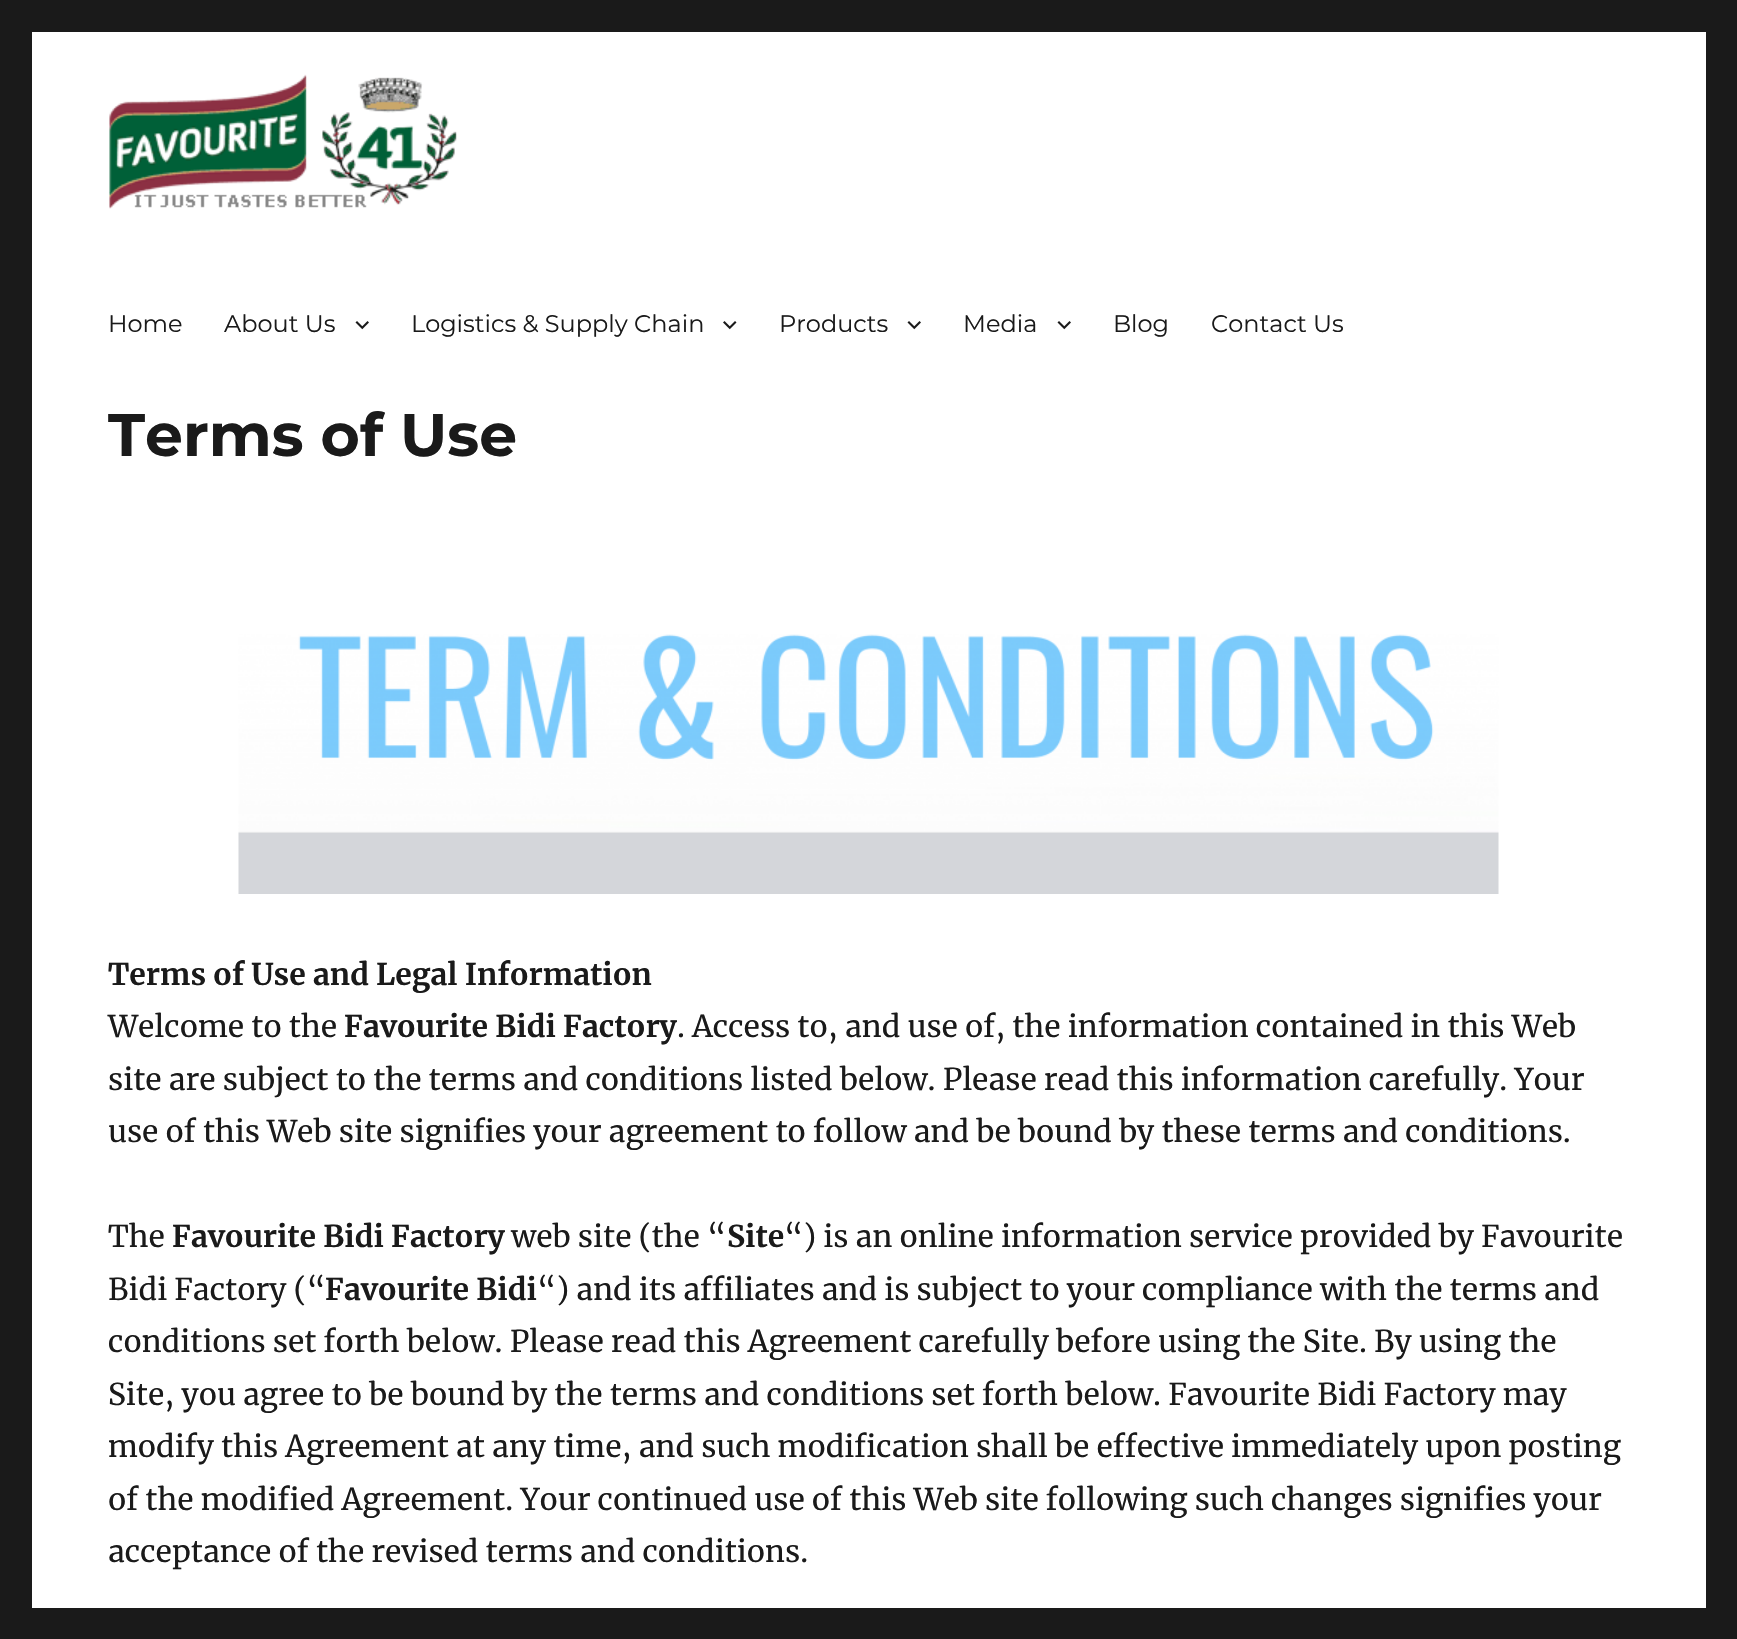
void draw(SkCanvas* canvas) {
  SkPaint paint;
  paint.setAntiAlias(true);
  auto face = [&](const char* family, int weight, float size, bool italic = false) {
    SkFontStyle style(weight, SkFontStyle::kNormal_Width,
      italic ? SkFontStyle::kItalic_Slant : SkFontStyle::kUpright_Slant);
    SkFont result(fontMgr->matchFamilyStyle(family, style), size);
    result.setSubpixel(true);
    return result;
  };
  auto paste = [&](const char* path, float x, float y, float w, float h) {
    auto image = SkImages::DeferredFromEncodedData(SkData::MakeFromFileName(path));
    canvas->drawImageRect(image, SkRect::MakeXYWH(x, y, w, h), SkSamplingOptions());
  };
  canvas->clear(0xff1a1a1a);
  paint.setColor(0xffffffff);
  canvas->drawRect(SkRect::MakeXYWH(32, 32, 1674, 1576), paint);
  paste("img/1.png", 109, 74, 348, 135);
  paste("img/2.png", 355, 321, 14, 9);
  paste("img/3.png", 723, 321, 14, 9);
  paste("img/2.png", 907, 321, 14, 9);
  paste("img/2.png", 1057, 321, 14, 9);
  paste("img/4.png", 238, 634, 1261, 260);
  auto f0 = face("Montserrat", 100, 24);
  paint.setColor(0xff1a1a1a);
  {
    const struct { const char* s; float x, y; } items[] = {
      {"Home", 108, 332},
      {"About Us", 224, 332},
      {"Logistics & Supply Chain", 411, 332},
      {"Products", 779, 332},
      {"Media", 963, 332},
      {"Blog", 1113, 332},
      {"Contact Us", 1211, 332},
    };
    for (auto [s, x, y] : items) {
      canvas->drawString(s, x, y, f0, paint);
    }
  }
  auto f1 = face("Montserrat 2", 100, 60);
  canvas->drawString("Terms of Use", 108, 456, f1, paint);
  auto f2 = face("Merriweather", 700, 30);
  canvas->drawString("Terms of Use and Legal Information", 108, 985, f2, paint);
  auto f3 = face("Merriweather", 400, 30);
  canvas->drawString("Welcome to the", 108, 1037, f3, paint);
  canvas->drawString("Favourite Bidi Factory", 344, 1037, f2, paint);
  {
    const struct { const char* s; float x, y; } items[] = {
      {". Access to, and use of, the information contained in this Web", 677, 1037},
      {"site are subject to the terms and conditions listed below. Please read this information carefully. Your", 108, 1090},
      {"use of this Web site signifies your agreement to follow and be bound by these terms and conditions.", 108, 1142},
      {"The", 108, 1247},
    };
    for (auto [s, x, y] : items) {
      canvas->drawString(s, x, y, f3, paint);
    }
  }
  canvas->drawString("Favourite Bidi Factory", 172, 1247, f2, paint);
  canvas->drawString("web site (the “", 511, 1247, f3, paint);
  canvas->drawString("Site", 727, 1247, f2, paint);
  canvas->drawString("“) is an online information service provided by Favourite", 784, 1247, f3, paint);
  canvas->drawString("Bidi Factory (“", 108, 1300, f3, paint);
  canvas->drawString("Favourite Bidi", 325, 1300, f2, paint);
  {
    const struct { const char* s; float x, y; } items[] = {
      {"“) and its affiliates and is subject to your compliance with the terms and", 537, 1300},
      {"conditions set forth below. Please read this Agreement carefully before using the Site. By using the", 108, 1352},
      {"Site, you agree to be bound by the terms and conditions set forth below. Favourite Bidi Factory may", 108, 1405},
      {"modify this Agreement at any time, and such modification shall be effective immediately upon posting", 108, 1457},
      {"of the modified Agreement. Your continued use of this Web site following such changes signifies your", 108, 1510},
      {"acceptance of the revised terms and conditions.", 108, 1562},
    };
    for (auto [s, x, y] : items) {
      canvas->drawString(s, x, y, f3, paint);
    }
  }
}
